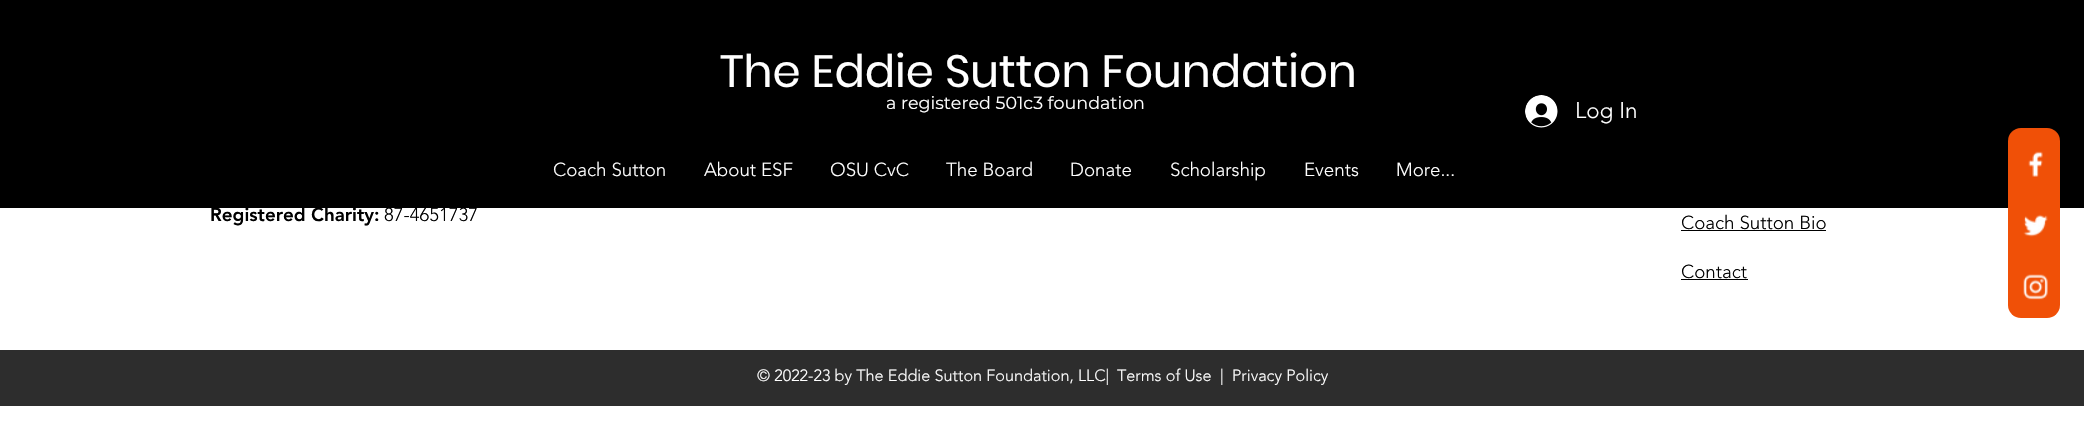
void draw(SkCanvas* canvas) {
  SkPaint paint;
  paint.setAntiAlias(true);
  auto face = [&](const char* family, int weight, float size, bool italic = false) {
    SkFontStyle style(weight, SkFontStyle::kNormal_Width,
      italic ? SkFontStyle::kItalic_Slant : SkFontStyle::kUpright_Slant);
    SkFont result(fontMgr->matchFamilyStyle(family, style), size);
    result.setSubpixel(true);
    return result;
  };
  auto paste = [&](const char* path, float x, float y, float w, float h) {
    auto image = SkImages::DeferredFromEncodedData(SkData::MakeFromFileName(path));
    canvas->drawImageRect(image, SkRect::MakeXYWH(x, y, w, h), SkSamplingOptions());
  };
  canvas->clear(0xffffffff);
  paint.setColor(0xff000000);
  canvas->drawRect(SkRect::MakeXYWH(0, 0, 2084, 208), paint);
  paste("img/1.png", 1525, 95, 33, 33);
  paint.setColor(0xfff05007);
  canvas->drawRoundRect(SkRect::MakeXYWH(2008, 128, 52, 190), 13, 13, paint);
  paste("img/2.png", 2028, 151, 15, 26);
  paste("img/3.png", 2023, 214, 25, 23);
  paste("img/4.png", 2023, 274, 25, 26);
  {
    const struct { float x, y, w, h; SkColor color; } items[] = {
      {1681, 230, 145, 1, 0xff000000},
      {1681, 279, 67, 1, 0xff000000},
      {0, 350, 2084, 56, 0xff2d2d2d},
    };
    for (auto [x, y, w, h, color] : items) {
      paint.setColor(color);
      canvas->drawRect(SkRect::MakeXYWH(x, y, w, h), paint);
    }
  }
  auto f0 = face("Poppins", 400, 45);
  paint.setColor(0xffffffff);
  canvas->drawString("The Eddie Sutton Foundation", 720, 87, f0, paint);
  auto f1 = face("Montserrat", 400, 17.5f);
  canvas->drawString("a registered 501c3 foundation", 886, 109, f1, paint);
  auto f2 = face("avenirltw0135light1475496", 300, 22.5f);
  canvas->drawString("Log In", 1575, 118, f2, paint);
  auto f3 = face("avenirltw0135light1475496", 300, 18.75f);
  {
    const struct { const char* s; float x, y; } items[] = {
      {"Coach Sutton", 553, 176},
      {"About ESF", 704, 176},
      {"OSU CvC", 830, 176},
      {"The Board", 946, 176},
      {"Donate", 1070, 176},
      {"Scholarship", 1170, 176},
      {"Events", 1304, 176},
      {"More...", 1396, 176},
    };
    for (auto [s, x, y] : items) {
      canvas->drawString(s, x, y, f3, paint);
    }
  }
  auto f4 = face("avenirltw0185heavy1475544", 900, 18.75f);
  paint.setColor(0xff000000);
  canvas->drawString("Registered Charity:", 210, 221, f4, paint);
  {
    const struct { const char* s; float x, y; } items[] = {
      {"87-4651737", 384, 221},
      {"Coach Sutton Bio", 1681, 229},
      {"Contact", 1681, 278},
    };
    for (auto [s, x, y] : items) {
      canvas->drawString(s, x, y, f3, paint);
    }
  }
  auto f5 = face("avenirltw0135light1475496", 300, 16.25f);
  paint.setColor(0xffffffff);
  {
    const struct { const char* s; float x, y; } items[] = {
      {"© 2022-23 by The Eddie Sutton Foundation, LLC|", 757, 381},
      {"Terms of Use", 1117, 381},
      {"|", 1220, 381},
      {"Privacy Policy", 1232, 381},
    };
    for (auto [s, x, y] : items) {
      canvas->drawString(s, x, y, f5, paint);
    }
  }
}
